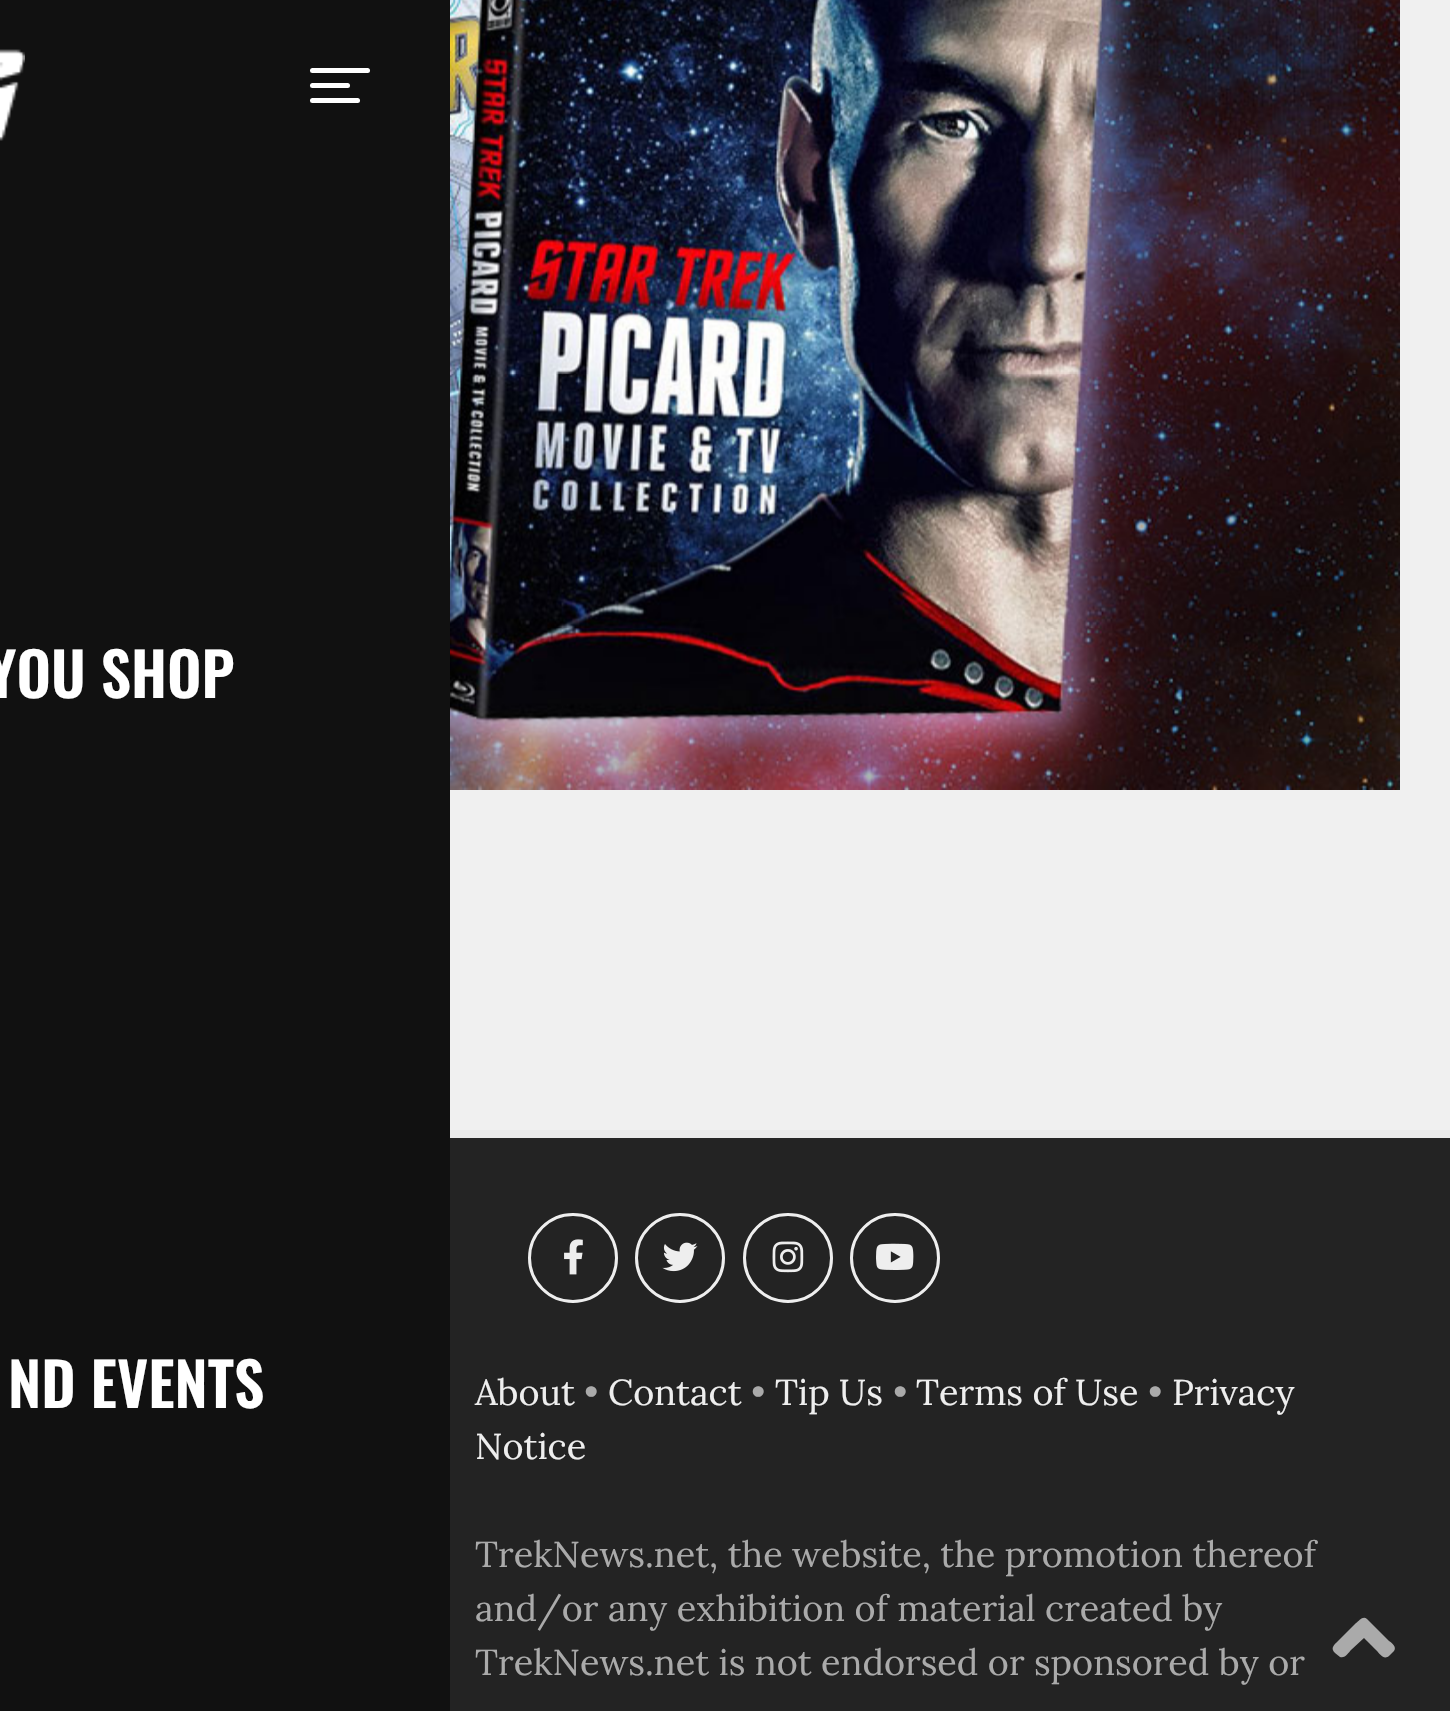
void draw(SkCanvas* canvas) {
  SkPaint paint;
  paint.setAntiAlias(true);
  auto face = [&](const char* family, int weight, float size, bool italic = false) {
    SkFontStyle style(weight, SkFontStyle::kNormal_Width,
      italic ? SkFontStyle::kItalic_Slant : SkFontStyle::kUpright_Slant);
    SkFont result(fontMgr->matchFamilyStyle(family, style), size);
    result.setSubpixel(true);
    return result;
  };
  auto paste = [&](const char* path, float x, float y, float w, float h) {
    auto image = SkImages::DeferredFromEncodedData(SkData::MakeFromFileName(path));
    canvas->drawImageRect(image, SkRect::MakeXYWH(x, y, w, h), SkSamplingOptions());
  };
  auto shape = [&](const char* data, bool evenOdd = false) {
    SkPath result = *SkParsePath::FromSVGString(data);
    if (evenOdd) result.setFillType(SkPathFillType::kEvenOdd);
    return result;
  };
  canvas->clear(0xfff0f0f0);
  paint.setColor(0xff111111);
  canvas->drawRect(SkRect::MakeXYWH(0, 0, 450, 1711), paint);
  paste("img/1.png", 0, 49, 25, 92);
  paint.setColor(0xffffffff);
  canvas->drawRoundRect(SkRect::MakeXYWH(310, 68, 60, 5), 2.5f, 2.5f, paint);
  canvas->drawRoundRect(SkRect::MakeXYWH(310, 83, 40, 5), 2.5f, 2.5f, paint);
  canvas->drawRoundRect(SkRect::MakeXYWH(310, 98, 50, 5), 2.5f, 2.5f, paint);
  paste("img/2.png", 450, 0, 950, 790);
  paint.setColor(0xff232323);
  canvas->drawRect(SkRect::MakeXYWH(450, 1138, 1000, 573), paint);
  paint.setColor(0xffe9e9e9);
  canvas->drawRect(SkRect::MakeXYWH(450, 1130, 1000, 8), paint);
  paint.setStroke(true);
  paint.setStrokeWidth(3);
  paint.setColor(0xffeeeeee);
  canvas->drawCircle(573, 1258, 43.5f, paint);
  paste("img/3.png", 564, 1239, 19, 36);
  canvas->drawCircle(680, 1258, 43.5f, paint);
  paste("img/4.png", 662, 1242, 36, 30);
  canvas->drawCircle(788, 1258, 43.5f, paint);
  paste("img/5.png", 772, 1241, 32, 32);
  canvas->drawCircle(895, 1258, 43.5f, paint);
  paste("img/6.png", 876, 1243, 38, 27);
  paint.setStroke(false);
  paint.setColor(0xffaaaaaa);
  canvas->drawPath(shape("M1367 1619L1389 1641C1392 1643 1397 1647 1394 1651L1390 1655C1384 1661 1381 1655 1376 1650L1364 1638L1351 1650C1349 1652 1345 1659 1340 1657L1335 1653C1330 1648 1334 1645 1338 1641L1356 1623C1359 1621 1363 1615 1367 1619Z"), paint);
  auto f0 = face("Oswald", 600, 60);
  paint.setColor(0xffffffff);
  canvas->drawString("YOU SHOP", -13, 698, f0, paint);
  canvas->drawString("ND EVENTS", 8, 1408, f0, paint);
  auto f1 = face("Lora", 400, 36);
  paint.setColor(0xffeeeeee);
  canvas->drawString("About", 475, 1405, f1, paint);
  paint.setColor(0xffaaaaaa);
  canvas->drawString("•", 584, 1405, f1, paint);
  paint.setColor(0xffeeeeee);
  canvas->drawString("Contact", 608, 1405, f1, paint);
  paint.setColor(0xffaaaaaa);
  canvas->drawString("•", 751, 1405, f1, paint);
  paint.setColor(0xffeeeeee);
  canvas->drawString("Tip Us", 775, 1405, f1, paint);
  paint.setColor(0xffaaaaaa);
  canvas->drawString("•", 893, 1405, f1, paint);
  paint.setColor(0xffeeeeee);
  canvas->drawString("Terms of Use", 916, 1405, f1, paint);
  paint.setColor(0xffaaaaaa);
  canvas->drawString("•", 1148, 1405, f1, paint);
  paint.setColor(0xffeeeeee);
  canvas->drawString("Privacy", 1172, 1405, f1, paint);
  canvas->drawString("Notice", 475, 1459, f1, paint);
  paint.setColor(0xffaaaaaa);
  {
    const struct { const char* s; float x, y; } items[] = {
      {"TrekNews.net, the website, the promotion thereof", 475, 1567},
      {"and/or any exhibition of material created by", 475, 1621},
      {"TrekNews.net is not endorsed or sponsored by or", 475, 1675},
    };
    for (auto [s, x, y] : items) {
      canvas->drawString(s, x, y, f1, paint);
    }
  }
}
